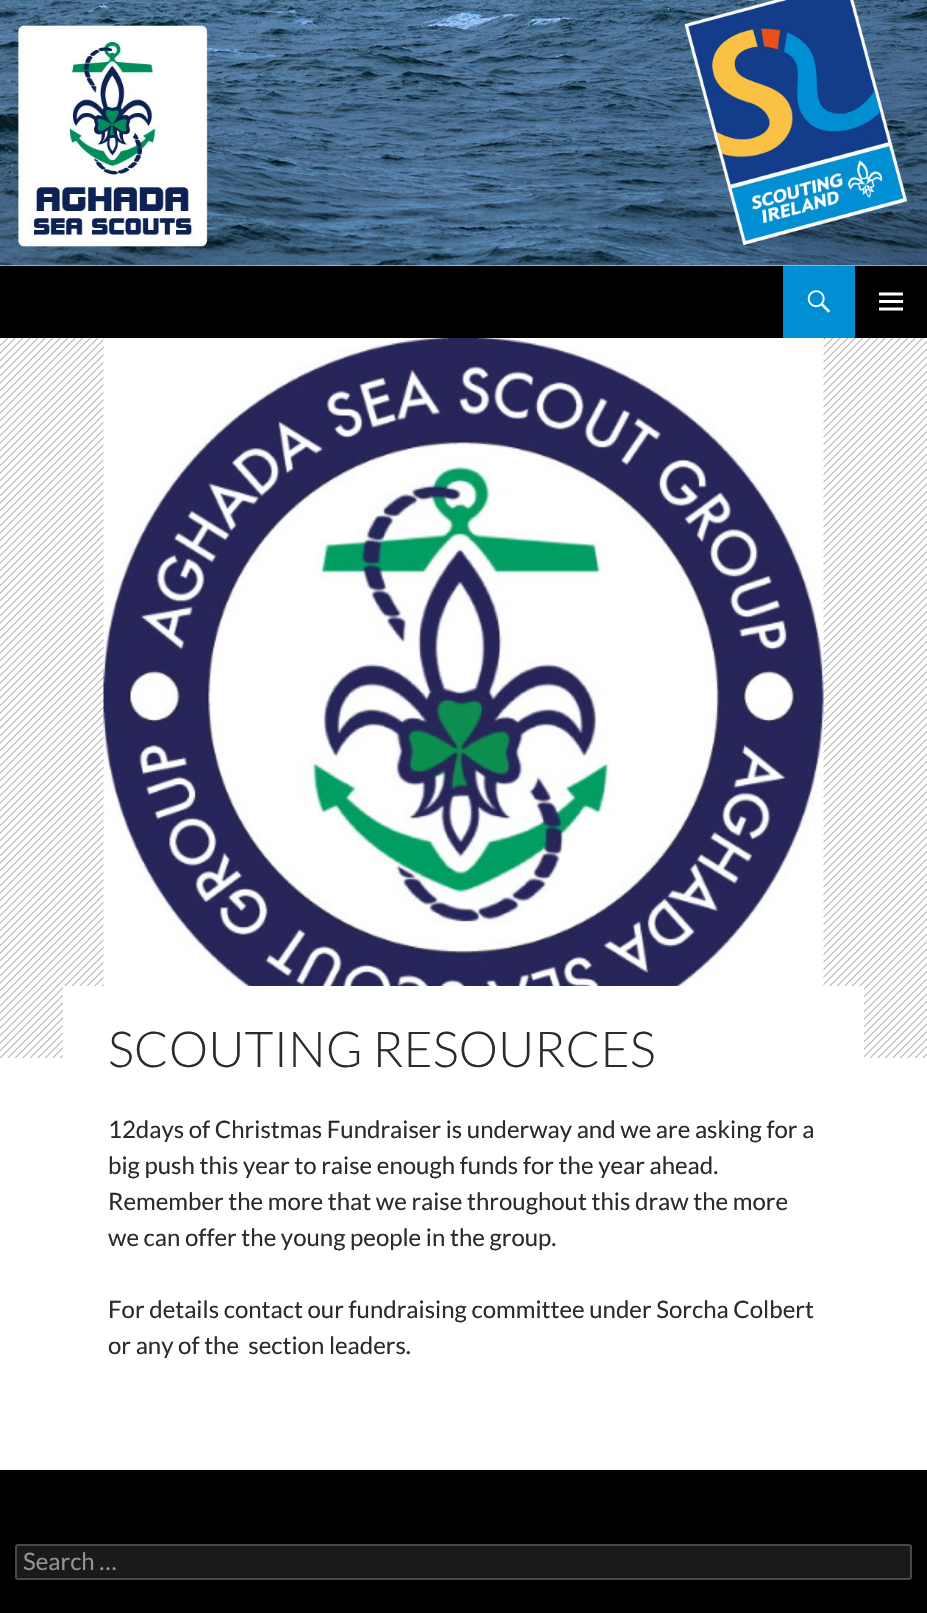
void draw(SkCanvas* canvas) {
  SkPaint paint;
  paint.setAntiAlias(true);
  auto face = [&](const char* family, int weight, float size, bool italic = false) {
    SkFontStyle style(weight, SkFontStyle::kNormal_Width,
      italic ? SkFontStyle::kItalic_Slant : SkFontStyle::kUpright_Slant);
    SkFont result(fontMgr->matchFamilyStyle(family, style), size);
    result.setSubpixel(true);
    return result;
  };
  auto paste = [&](const char* path, float x, float y, float w, float h) {
    auto image = SkImages::DeferredFromEncodedData(SkData::MakeFromFileName(path));
    canvas->drawImageRect(image, SkRect::MakeXYWH(x, y, w, h), SkSamplingOptions());
  };
  canvas->clear(0xffffffff);
  paste("img/1.png", 0, 0, 927, 266);
  paint.setColor(0xff000000);
  canvas->drawRect(SkRect::MakeXYWH(0, 266, 927, 72), paint);
  paint.setColor(0xff008fd2);
  canvas->drawRect(SkRect::MakeXYWH(783, 266, 72, 72), paint);
  paste("img/2.png", 807, 290, 24, 23);
  paste("img/3.png", 879, 292, 24, 19);
  paint.setColor(0xffb2b2b2);
  canvas->drawRect(SkRect::MakeXYWH(0, 338, 927, 720), paint);
  paste("img/4.png", 0, 338, 927, 720);
  paste("img/5.png", 103, 338, 721, 648);
  paint.setColor(0xffffffff);
  canvas->drawRect(SkRect::MakeXYWH(63, 986, 801, 72), paint);
  paint.setColor(0xff000000);
  canvas->drawRect(SkRect::MakeXYWH(0, 1470, 927, 143), paint);
  paint.setColor(0xff1a1a1a);
  canvas->drawRoundRect(SkRect::MakeXYWH(15, 1544, 897, 36), 3, 3, paint);
  paint.setStroke(true);
  paint.setStrokeWidth(2);
  paint.setColor(0x33ffffff);
  canvas->drawRoundRect(SkRect::MakeXYWH(16, 1545, 895, 34), 2, 2, paint);
  auto f0 = face("Lato", 300, 49.5f);
  paint.setStroke(false);
  paint.setColor(0xff2b2b2b);
  canvas->drawString("SCOUTING RESOURCES", 108, 1067, f0, paint);
  auto f1 = face("Lato", 400, 24);
  {
    const struct { const char* s; float x, y; } items[] = {
      {"12days of Christmas Fundraiser is underway and we are asking for a", 108, 1138},
      {"big push this year to raise enough funds for the year ahead.", 108, 1174},
      {"Remember the more that we raise throughout this draw the more", 108, 1210},
      {"we can offer the young people in the group.", 108, 1246},
      {"For details contact our fundraising committee under Sorcha Colbert", 108, 1318},
      {"or any of the  section leaders.", 108, 1354},
    };
    for (auto [s, x, y] : items) {
      canvas->drawString(s, x, y, f1, paint);
    }
  }
  paint.setColor(0xff939393);
  canvas->drawString("Search …", 23, 1570, f1, paint);
}
